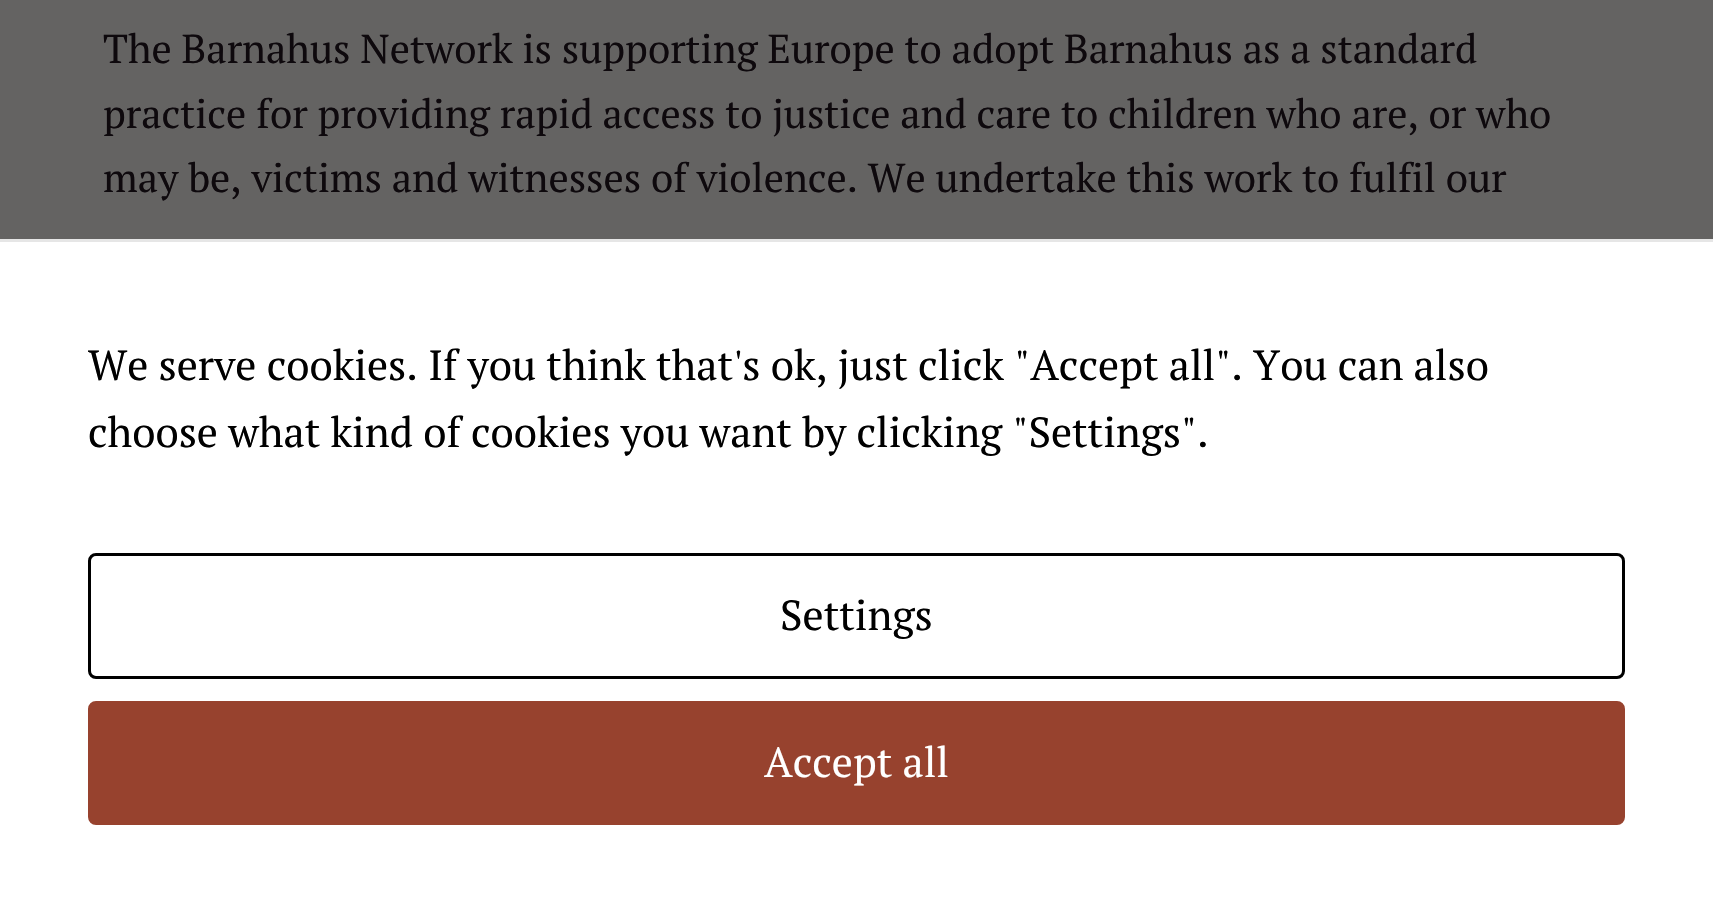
void draw(SkCanvas* canvas) {
  SkPaint paint;
  paint.setAntiAlias(true);
  auto face = [&](const char* family, int weight, float size, bool italic = false) {
    SkFontStyle style(weight, SkFontStyle::kNormal_Width,
      italic ? SkFontStyle::kItalic_Slant : SkFontStyle::kUpright_Slant);
    SkFont result(fontMgr->matchFamilyStyle(family, style), size);
    result.setSubpixel(true);
    return result;
  };
  canvas->clear(0xff646362);
  paint.setColor(0xffffffff);
  canvas->drawRect(SkRect::MakeXYWH(0, 242, 1713, 669), paint);
  paint.setColor(0xffe6e6e6);
  canvas->drawRect(SkRect::MakeXYWH(0, 239, 1713, 3), paint);
  paint.setStroke(true);
  paint.setStrokeWidth(3);
  paint.setColor(0xff000000);
  canvas->drawRoundRect(SkRect::MakeXYWH(89.5f, 554.5f, 1534, 123), 6.5f, 6.5f, paint);
  paint.setStroke(false);
  paint.setColor(0xff97422e);
  canvas->drawRoundRect(SkRect::MakeXYWH(89.5f, 702.5f, 1534, 121), 6.5f, 6.5f, paint);
  paint.setStroke(true);
  canvas->drawRoundRect(SkRect::MakeXYWH(89.5f, 702.5f, 1534, 121), 6.5f, 6.5f, paint);
  auto f0 = face("PT Serif", 400, 40.25f);
  paint.setStroke(false);
  paint.setColor(0xff0e090d);
  {
    const struct { const char* s; float x, y; } items[] = {
      {"The Barnahus Network is supporting Europe to adopt Barnahus as a standard", 103, 63},
      {"practice for providing rapid access to justice and care to children who are, or who", 103, 128},
      {"may be, victims and witnesses of violence. We undertake this work to fulfil our", 103, 192},
    };
    for (auto [s, x, y] : items) {
      canvas->drawString(s, x, y, f0, paint);
    }
  }
  auto f1 = face("PT Serif", 400, 42);
  paint.setColor(0xff000000);
  {
    const struct { const char* s; float x, y; } items[] = {
      {"We serve cookies. If you think that's ok, just click \"Accept all\". You can also", 88, 380},
      {"choose what kind of cookies you want by clicking \"Settings\".", 88, 447},
      {"Settings", 780, 630},
    };
    for (auto [s, x, y] : items) {
      canvas->drawString(s, x, y, f1, paint);
    }
  }
  paint.setColor(0xffffffff);
  canvas->drawString("Accept all", 764, 777, f1, paint);
}
